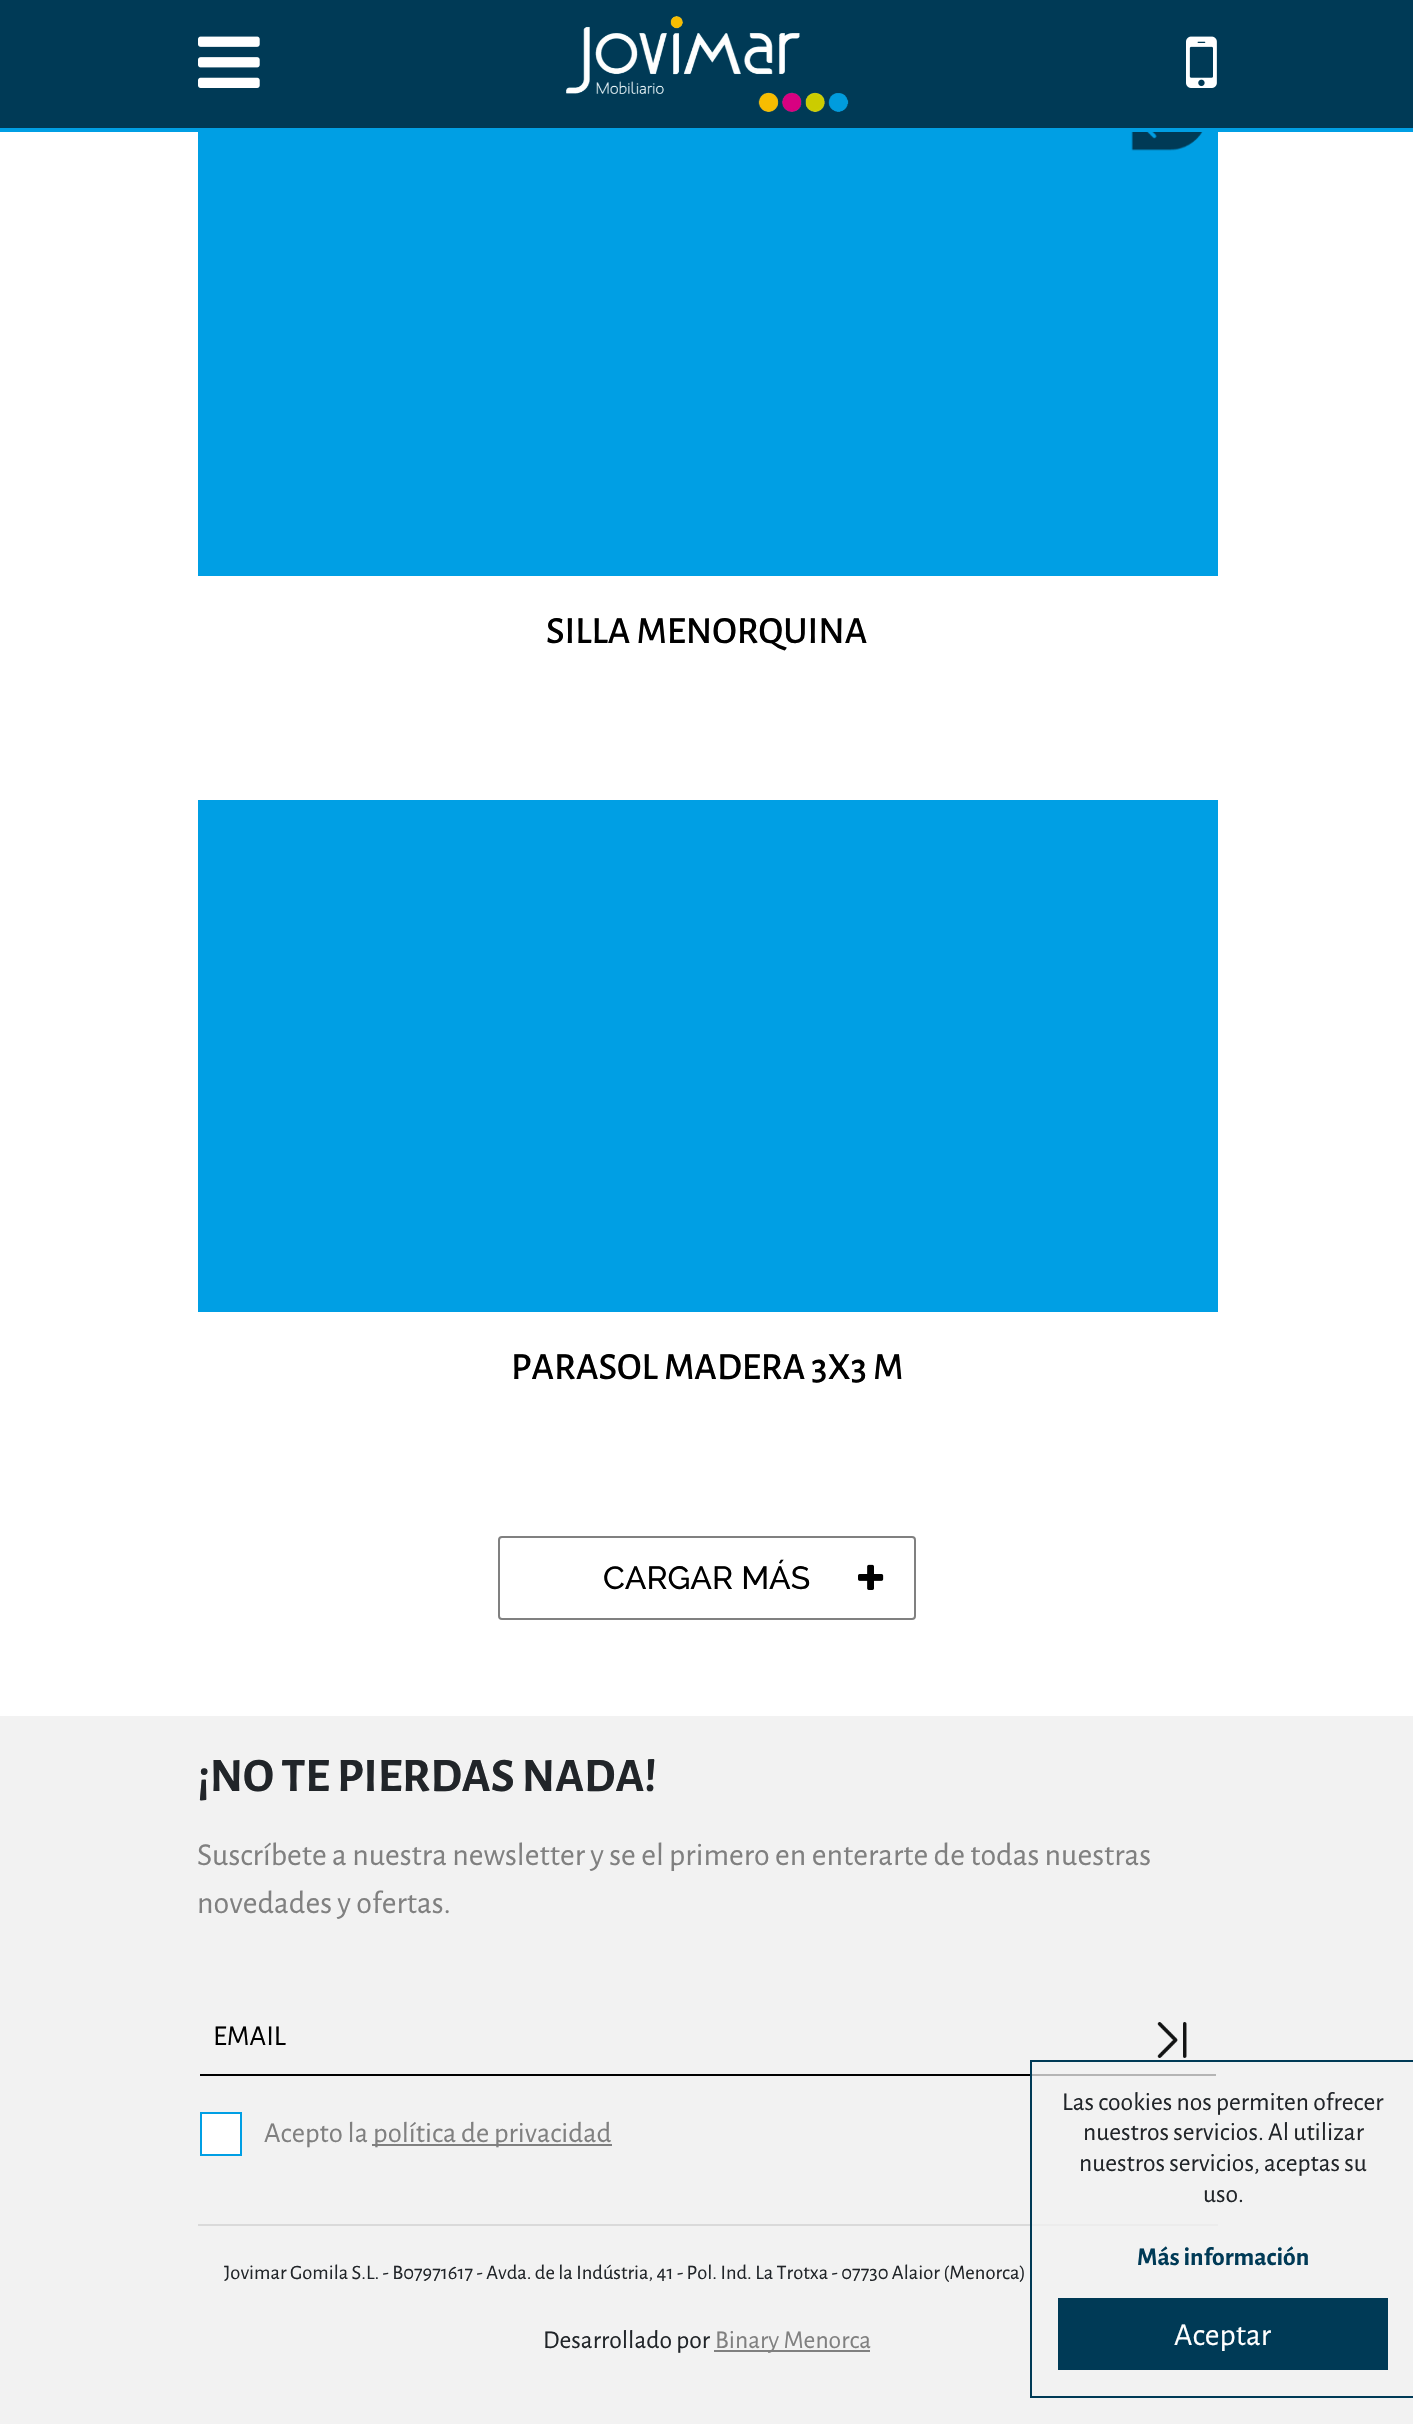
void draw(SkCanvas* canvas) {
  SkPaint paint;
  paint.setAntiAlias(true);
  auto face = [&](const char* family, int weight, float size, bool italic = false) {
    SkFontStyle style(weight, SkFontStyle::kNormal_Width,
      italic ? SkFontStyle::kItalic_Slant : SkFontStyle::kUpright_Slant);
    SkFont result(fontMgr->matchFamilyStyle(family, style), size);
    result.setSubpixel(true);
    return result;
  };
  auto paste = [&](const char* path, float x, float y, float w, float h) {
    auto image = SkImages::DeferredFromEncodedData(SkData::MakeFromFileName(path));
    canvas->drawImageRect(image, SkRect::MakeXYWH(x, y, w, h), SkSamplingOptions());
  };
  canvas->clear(0xffffffff);
  paint.setColor(0xff003a56);
  canvas->drawRect(SkRect::MakeXYWH(0, 0, 1413, 128), paint);
  paste("img/1.png", 198, 36, 62, 52);
  paste("img/2.png", 566, 16, 283, 96);
  paste("img/3.png", 1186, 36, 31, 52);
  paint.setColor(0xff009fe4);
  canvas->drawRect(SkRect::MakeXYWH(0, 128, 1413, 4), paint);
  canvas->drawRect(SkRect::MakeXYWH(198, 132, 1020, 444), paint);
  paste("img/4.png", 1131, 132, 72, 19);
  canvas->drawRect(SkRect::MakeXYWH(198, 800, 1020, 512), paint);
  paint.setStroke(true);
  paint.setStrokeWidth(2);
  paint.setColor(0xff808080);
  canvas->drawRoundRect(SkRect::MakeXYWH(499, 1537, 416, 82), 3, 3, paint);
  paste("img/5.png", 858, 1564, 26, 26);
  paint.setStroke(false);
  paint.setColor(0xfff2f2f2);
  canvas->drawRect(SkRect::MakeXYWH(0, 1716, 1413, 708), paint);
  paint.setColor(0xff000000);
  canvas->drawRect(SkRect::MakeXYWH(200, 2074, 1016, 2), paint);
  paste("img/6.png", 1157, 2022, 30, 36);
  paint.setColor(0xffffffff);
  canvas->drawRect(SkRect::MakeXYWH(201, 2113, 40, 42), paint);
  paint.setStroke(true);
  paint.setColor(0xff009fe4);
  canvas->drawRect(SkRect::MakeXYWH(201, 2113, 40, 42), paint);
  paint.setStroke(false);
  {
    const struct { float x, y, w, h; SkColor color; } items[] = {
      {372, 2144, 240, 2, 0xff808080},
      {198, 2224, 1020, 2, 0xffdadada},
      {714, 2350, 156, 2, 0xff808080},
      {1032, 2074, 186, 152, 0xbff2f2f2},
      {1030, 2060, 383, 2, 0xff003a56},
      {1030, 2396, 383, 2, 0xff003a56},
      {1030, 2060, 2, 338, 0xff003a56},
      {1058, 2298, 330, 72, 0xff003a56},
    };
    for (auto [x, y, w, h, color] : items) {
      paint.setColor(color);
      canvas->drawRect(SkRect::MakeXYWH(x, y, w, h), paint);
    }
  }
  auto f0 = face("Alegreya Sans", 500, 38.4f);
  paint.setColor(0xff000000);
  canvas->drawString("SILLA MENORQUINA", 546, 643, f0, paint);
  canvas->drawString("PARASOL MADERA 3X3 M", 511, 1379, f0, paint);
  auto f1 = face("Raleway", 500, 32);
  canvas->drawString("CARGAR MÁS", 603, 1589, f1, paint);
  auto f2 = face("Alegreya Sans", 700, 48);
  paint.setColor(0xff212529);
  canvas->drawString("¡NO TE PIERDAS NADA!", 197, 1791, f2, paint);
  auto f3 = face("Alegreya Sans", 400, 32);
  paint.setColor(0xff808080);
  canvas->drawString("Suscríbete a nuestra newsletter y se el primero en enterarte de todas nuestras", 197, 1865, f3, paint);
  canvas->drawString("novedades y ofertas.", 197, 1913, f3, paint);
  auto f4 = face("Alegreya Sans", 400, 28.75f);
  paint.setColor(0xff000000);
  canvas->drawString("EMAIL", 213, 2045, f4, paint);
  paint.setColor(0xff808080);
  canvas->drawString("Acepto la", 264, 2142, f4, paint);
  canvas->drawString("política de privacidad", 373, 2142, f4, paint);
  auto f5 = face("Alegreya Sans", 400, 20.5f);
  paint.setColor(0xff212529);
  canvas->drawString("Jovimar Gomila S.L. - B07971617 - Avda. de la Indústria, 41 - Pol. Ind. La Trotxa - 07730 Alaior (Menorca)", 224, 2279, f5, paint);
  auto f6 = face("Alegreya Sans", 400, 25.6f);
  canvas->drawString("Desarrollado por", 543, 2348, f6, paint);
  paint.setColor(0xff808080);
  canvas->drawString("Binary Menorca", 715, 2348, f6, paint);
  paint.setColor(0xff212529);
  {
    const struct { const char* s; float x, y; } items[] = {
      {"Las cookies nos permiten ofrecer", 1062, 2110},
      {"nuestros servicios. Al utilizar", 1083, 2140},
      {"nuestros servicios, aceptas su", 1079, 2171},
      {"uso.", 1203, 2202},
    };
    for (auto [s, x, y] : items) {
      canvas->drawString(s, x, y, f6, paint);
    }
  }
  auto f7 = face("Alegreya Sans", 700, 25.6f);
  paint.setColor(0xff003a56);
  canvas->drawString("Más información", 1137, 2265, f7, paint);
  paint.setColor(0xffffffff);
  canvas->drawString("Aceptar", 1174, 2345, f3, paint);
}
